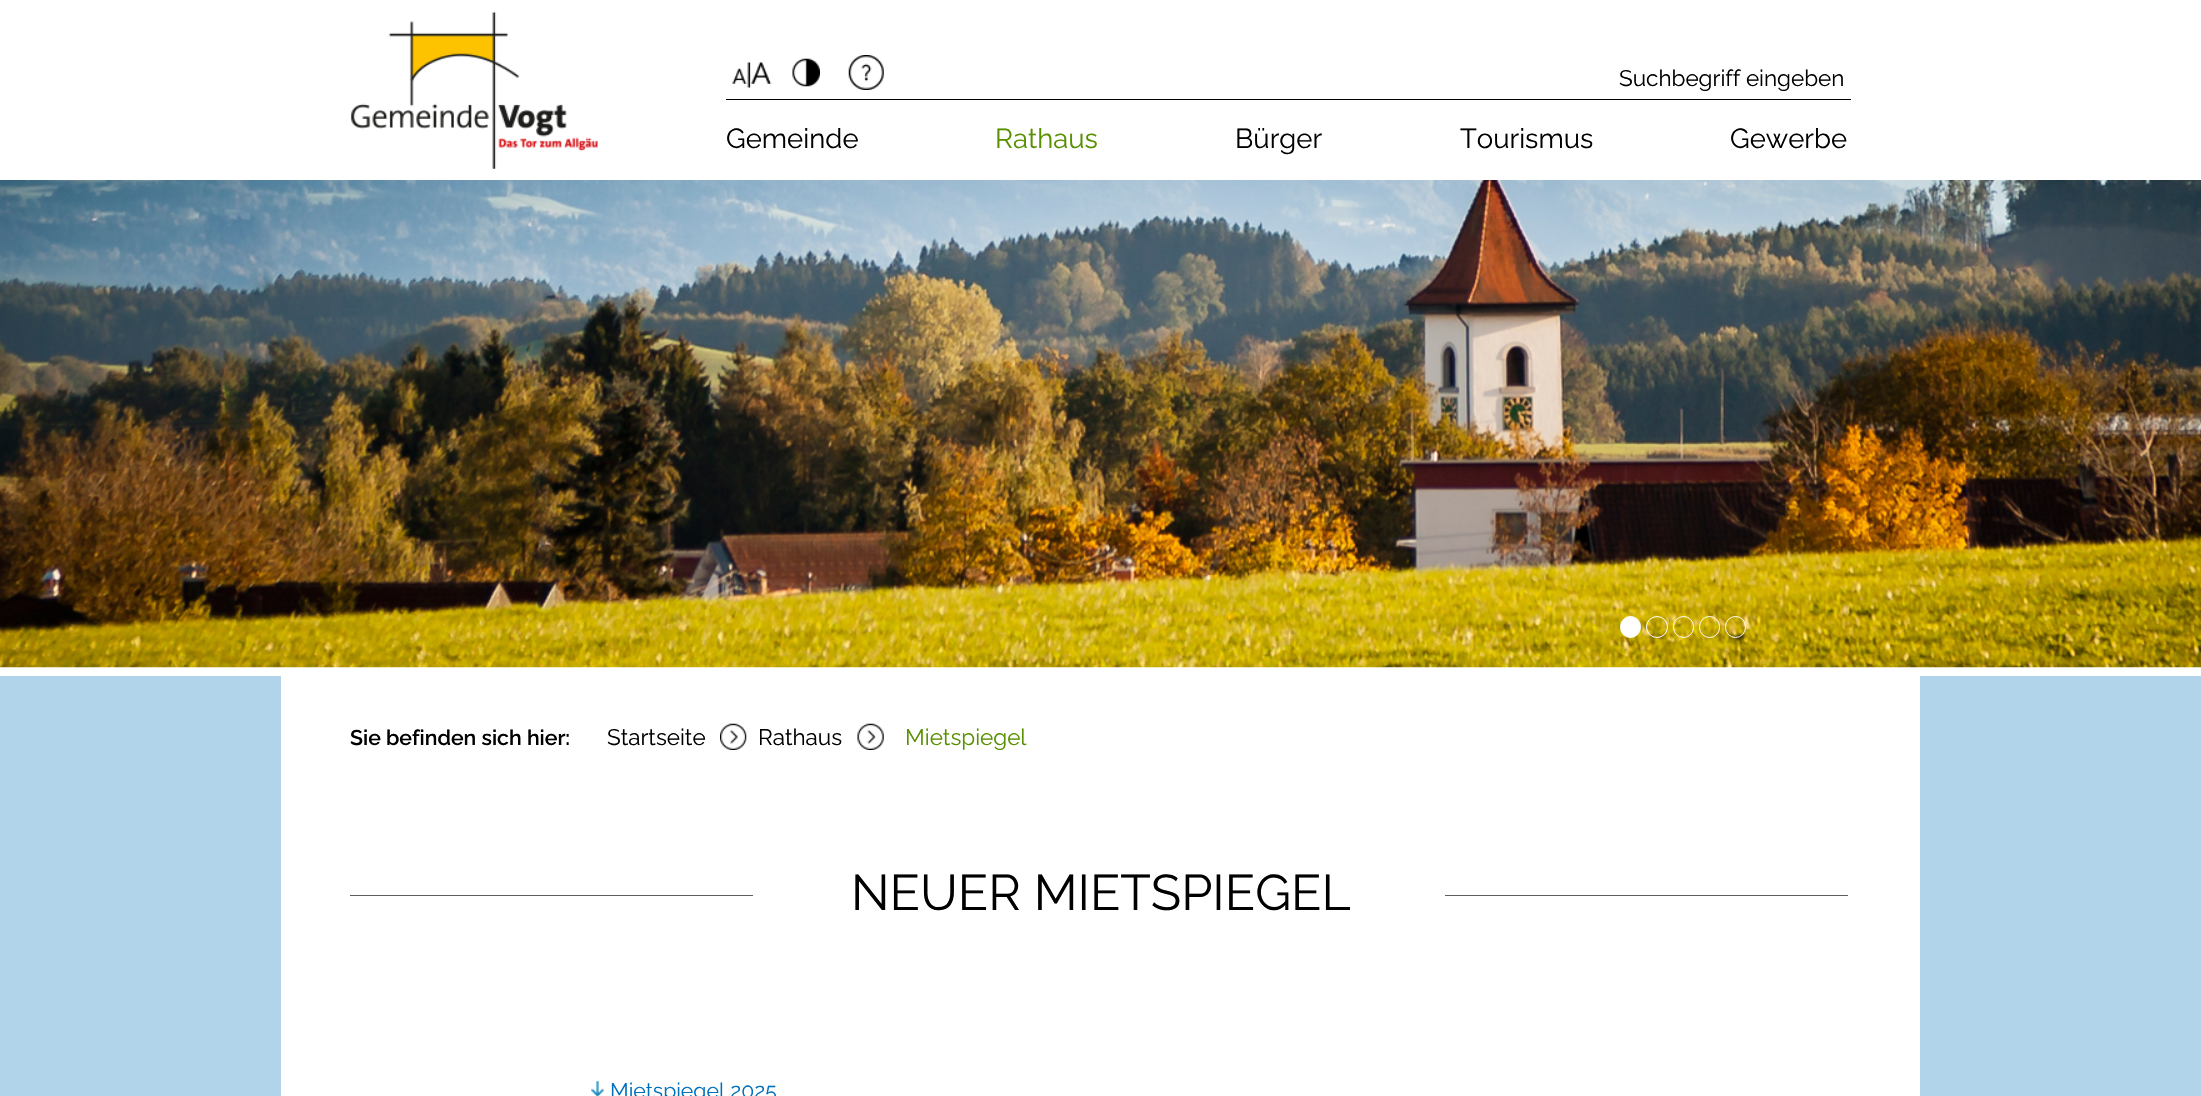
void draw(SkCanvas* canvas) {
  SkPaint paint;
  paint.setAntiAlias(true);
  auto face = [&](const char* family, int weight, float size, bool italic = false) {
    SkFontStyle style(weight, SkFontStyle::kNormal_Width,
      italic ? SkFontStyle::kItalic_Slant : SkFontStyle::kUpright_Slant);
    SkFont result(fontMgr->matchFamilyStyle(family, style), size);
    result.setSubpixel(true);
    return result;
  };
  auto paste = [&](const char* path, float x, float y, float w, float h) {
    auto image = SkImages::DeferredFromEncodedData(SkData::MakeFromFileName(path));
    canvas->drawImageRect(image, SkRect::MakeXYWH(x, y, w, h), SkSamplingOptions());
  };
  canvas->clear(0xffffffff);
  paste("img/1.png", 351, 12, 247, 157);
  paste("img/2.png", 732, 62, 40, 26);
  paste("img/3.png", 792, 58, 28, 29);
  paste("img/4.png", 848, 55, 36, 35);
  paint.setColor(0xff000000);
  canvas->drawRect(SkRect::MakeXYWH(726, 99, 1125, 1), paint);
  paste("img/5.png", 0, 180, 2201, 488);
  paint.setColor(0xffffffff);
  canvas->drawRoundRect(SkRect::MakeXYWH(1620.5f, 616.5f, 20, 21), 10, 10, paint);
  paint.setStroke(true);
  paint.setStrokeWidth(1);
  canvas->drawRoundRect(SkRect::MakeXYWH(1620.5f, 616.5f, 20, 21), 10, 10, paint);
  canvas->drawCircle(1657, 627, 10.5f, paint);
  canvas->drawRoundRect(SkRect::MakeXYWH(1673.5f, 616.5f, 20, 21), 10, 10, paint);
  canvas->drawRoundRect(SkRect::MakeXYWH(1699.5f, 616.5f, 20, 21), 10, 10, paint);
  canvas->drawRoundRect(SkRect::MakeXYWH(1725.5f, 616.5f, 20, 21), 10, 10, paint);
  paint.setStroke(false);
  paint.setColor(0xffb2d4eb);
  canvas->drawRect(SkRect::MakeXYWH(0, 676, 2201, 420), paint);
  paint.setColor(0xffffffff);
  canvas->drawRect(SkRect::MakeXYWH(281, 676, 1639, 420), paint);
  paste("img/6.png", 720, 723, 27, 27);
  paste("img/7.png", 857, 723, 27, 27);
  paint.setColor(0xff5e5e5e);
  canvas->drawRect(SkRect::MakeXYWH(350, 895, 403, 1), paint);
  canvas->drawRect(SkRect::MakeXYWH(1445, 895, 403, 1), paint);
  paste("img/8.png", 591, 1081, 13, 15);
  auto f0 = face("Raleway", 400, 22.5f);
  paint.setColor(0xff000000);
  canvas->drawString("Suchbegriff eingeben", 1619, 86, f0, paint);
  auto f1 = face("Raleway", 400, 27.5f);
  canvas->drawString("Gemeinde", 726, 148, f1, paint);
  paint.setColor(0xff589000);
  canvas->drawString("Rathaus", 995, 148, f1, paint);
  paint.setColor(0xff000000);
  {
    const struct { const char* s; float x, y; } items[] = {
      {"Bürger", 1235, 148},
      {"Tourismus", 1460, 148},
      {"Gewerbe", 1730, 148},
    };
    for (auto [s, x, y] : items) {
      canvas->drawString(s, x, y, f1, paint);
    }
  }
  auto f2 = face("Raleway", 600, 21.25f);
  canvas->drawString("Sie befinden sich hier:", 350, 745, f2, paint);
  canvas->drawString("Startseite", 607, 745, f0, paint);
  canvas->drawString("Rathaus", 758, 745, f0, paint);
  paint.setColor(0xff589000);
  canvas->drawString("Mietspiegel", 905, 745, f0, paint);
  auto f3 = face("Raleway", 400, 50);
  paint.setColor(0xff000000);
  canvas->drawString("NEUER MIETSPIEGEL", 851, 910, f3, paint);
  auto f4 = face("Raleway", 400, 21.25f);
  paint.setColor(0xff0070bc);
  canvas->drawString("Mietspiegel 2025", 610, 1098, f4, paint);
}
